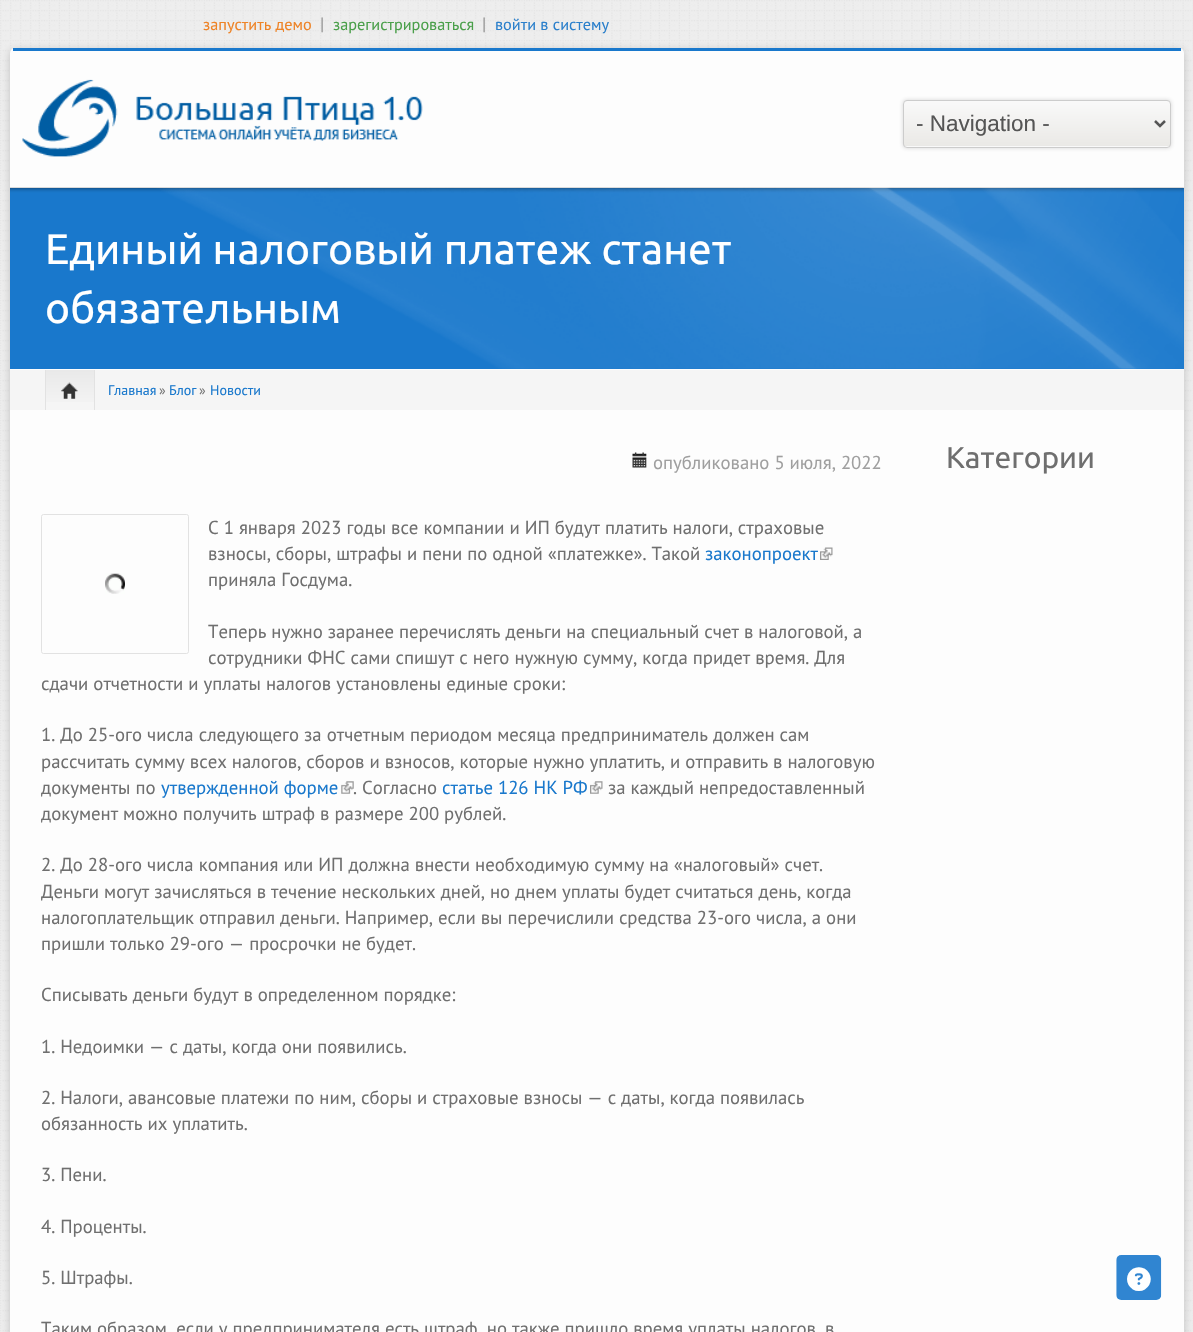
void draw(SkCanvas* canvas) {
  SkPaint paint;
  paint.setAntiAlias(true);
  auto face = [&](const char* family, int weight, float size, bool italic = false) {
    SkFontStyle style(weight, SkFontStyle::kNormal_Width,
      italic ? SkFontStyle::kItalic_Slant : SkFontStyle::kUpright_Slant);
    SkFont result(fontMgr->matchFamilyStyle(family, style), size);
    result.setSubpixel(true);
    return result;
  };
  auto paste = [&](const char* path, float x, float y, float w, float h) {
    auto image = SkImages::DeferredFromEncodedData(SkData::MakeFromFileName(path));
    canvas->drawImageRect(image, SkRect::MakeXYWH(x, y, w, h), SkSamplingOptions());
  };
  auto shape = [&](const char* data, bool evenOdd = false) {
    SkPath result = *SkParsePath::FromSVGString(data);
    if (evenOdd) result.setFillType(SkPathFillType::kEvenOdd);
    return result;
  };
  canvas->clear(0xffffffff);
  paste("img/1.png", 0, 0, 1193, 1332);
  paint.setColor(0x40323232);
  paint.setMaskFilter(SkMaskFilter::MakeBlur(kNormal_SkBlurStyle, 4));
  canvas->drawRoundRect(SkRect::MakeXYWH(10, 50, 1174, 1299), 5, 5, paint);
  paint.setMaskFilter(nullptr);
  paint.setColor(0xfffdfdfd);
  canvas->drawRoundRect(SkRect::MakeXYWH(10, 48, 1174, 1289), 5, 5, paint);
  paint.setColor(0xff1978cc);
  canvas->drawRect(SkRect::MakeXYWH(13, 48, 1168, 3), paint);
  paste("img/2.png", 22, 79, 401, 78);
  paint.setColor(0x33323232);
  paint.setMaskFilter(SkMaskFilter::MakeBlur(kNormal_SkBlurStyle, 2));
  canvas->drawRoundRect(SkRect::MakeXYWH(903, 100, 268, 48), 4, 4, paint);
  paint.setMaskFilter(nullptr);
  canvas->save();
  canvas->clipPath(shape("M907 100H1167C1169 100 1171 102 1171 104V144C1171 146 1169 148 1167 148H907C905 148 903 146 903 144V104C903 102 905 100 907 100Z"), true);
  {
    const SkColor colors[] = {0xfff9f9f9, 0xffeae9e6};
    const float stops[] = {0, 1};
    const SkPoint ends[] = {{1037, 101}, {1037, 146}};
    paint.setShader(SkGradientShader::MakeLinear(ends, colors, stops, 2, SkTileMode::kClamp));
    paint.setAlpha(255);
  }
  canvas->drawRect(SkRect::MakeXYWH(903, 101, 268, 45), paint);
  {
    const SkColor colors[] = {0xfff9f9f9, 0xffeae9e6};
    const float stops[] = {0, 1};
    const SkPoint ends[] = {{1037, 146}, {1037, 191}};
    paint.setShader(SkGradientShader::MakeLinear(ends, colors, stops, 2, SkTileMode::kClamp));
    paint.setAlpha(255);
  }
  canvas->drawRect(SkRect::MakeXYWH(903, 146, 268, 2), paint);
  canvas->restore();
  paint.setStroke(true);
  paint.setStrokeWidth(1);
  paint.setShader(nullptr);
  paint.setColor(0xffcccccc);
  canvas->drawRoundRect(SkRect::MakeXYWH(903.5f, 100.5f, 267, 47), 3.5f, 3.5f, paint);
  paint.setStrokeWidth(2.5f);
  paint.setColor(0xff555555);
  canvas->drawPath(shape("M1155 121L1160 126L1165 121"), paint);
  paint.setStroke(false);
  paint.setColor(0xff1978cc);
  canvas->drawRect(SkRect::MakeXYWH(10, 188, 1174, 181), paint);
  paste("img/3.png", 10, 187, 1174, 182);
  paint.setColor(0xfff5f5f5);
  canvas->drawRect(SkRect::MakeXYWH(10, 370, 1174, 40), paint);
  {
    const SkColor colors[] = {0xffe9e9e9, 0xfff5f5f5};
    const float stops[] = {0, 1};
    const SkPoint ends[] = {{70, 370}, {70, 410}};
    paint.setShader(SkGradientShader::MakeLinear(ends, colors, stops, 2, SkTileMode::kClamp));
    paint.setAlpha(255);
  }
  canvas->drawRect(SkRect::MakeXYWH(46, 370, 48, 32), paint);
  paint.setShader(nullptr);
  paint.setColor(0xffe2e2e2);
  canvas->drawRect(SkRect::MakeXYWH(94, 370, 1, 40), paint);
  canvas->drawRect(SkRect::MakeXYWH(45, 370, 1, 40), paint);
  paste("img/4.png", 61, 382, 17, 17);
  paste("img/5.png", 632, 452, 15, 16);
  paint.setStroke(true);
  paint.setStrokeWidth(1);
  canvas->drawRoundRect(SkRect::MakeXYWH(41.5f, 514.5f, 147, 139), 2, 2, paint);
  paste("img/6.png", 105, 573, 20, 21);
  paste("img/7.png", 820, 547, 13, 13);
  paste("img/8.png", 341, 781, 13, 13);
  paste("img/9.png", 590, 781, 13, 13);
  paste("img/10.png", 1116, 1255, 46, 45);
  auto f0 = face("PT Sans", 400, 16.25f);
  paint.setStroke(false);
  paint.setColor(0xffee8326);
  canvas->drawString("запустить демо", 203, 30, f0, paint);
  auto f1 = face("PT Sans", 400, 18);
  paint.setColor(0xff999999);
  canvas->drawString("|", 320, 30, f1, paint);
  paint.setColor(0xff4a9f4a);
  canvas->drawString("зарегистрироваться", 333, 30, f0, paint);
  paint.setColor(0xff999999);
  canvas->drawString("|", 482, 30, f1, paint);
  paint.setColor(0xff2a7fcb);
  canvas->drawString("войти в систему", 495, 30, f0, paint);
  auto f2 = face("Liberation Sans", 400, 22.5f);
  paint.setColor(0xff555555);
  canvas->drawString("- Navigation -", 916, 131, f2, paint);
  auto f3 = face("Ubuntu", 400, 42.5f);
  paint.setColor(0xffffffff);
  canvas->drawString("Единый налоговый платеж станет", 45, 264, f3, paint);
  canvas->drawString("обязательным", 45, 323, f3, paint);
  auto f4 = face("PT Sans", 400, 14);
  paint.setColor(0xff1978cc);
  canvas->drawString("Главная", 108, 395, f4, paint);
  paint.setColor(0xff777777);
  canvas->drawString("»", 159, 395, f4, paint);
  paint.setColor(0xff1978cc);
  canvas->drawString("Блог", 169, 395, f4, paint);
  paint.setColor(0xff777777);
  canvas->drawString("»", 199, 395, f4, paint);
  paint.setColor(0xff1978cc);
  canvas->drawString("Новости", 210, 395, f4, paint);
  auto f5 = face("PT Sans", 400, 18.75f);
  paint.setColor(0xff9f9f9f);
  canvas->drawString("опубликовано 5 июля, 2022", 653, 469, f5, paint);
  paint.setColor(0xff6f6f6f);
  canvas->drawString("С 1 января 2023 годы все компании и ИП будут платить налоги, страховые", 208, 534, f5, paint);
  canvas->drawString("взносы, сборы, штрафы и пени по одной «платежке». Такой", 208, 560, f5, paint);
  paint.setColor(0xff1978cc);
  canvas->drawString("законопроект", 705, 560, f5, paint);
  paint.setColor(0xff6f6f6f);
  {
    const struct { const char* s; float x, y; } items[] = {
      {"приняла Госдума.", 208, 586},
      {"Теперь нужно заранее перечислять деньги на специальный счет в налоговой, а", 208, 638},
      {"сотрудники ФНС сами спишут с него нужную сумму, когда придет время. Для", 208, 664},
      {"сдачи отчетности и уплаты налогов установлены единые сроки:", 41, 690},
      {"1. До 25-ого числа следующего за отчетным периодом месяца предприниматель должен сам", 41, 741},
      {"рассчитать сумму всех налогов, сборов и взносов, которые нужно уплатить, и отправить в налоговую", 41, 768},
      {"документы по", 41, 794},
    };
    for (auto [s, x, y] : items) {
      canvas->drawString(s, x, y, f5, paint);
    }
  }
  paint.setColor(0xff1978cc);
  canvas->drawString("утвержденной форме", 161, 794, f5, paint);
  paint.setColor(0xff6f6f6f);
  canvas->drawString(". Согласно", 353, 794, f5, paint);
  paint.setColor(0xff1978cc);
  canvas->drawString("статье 126 НК РФ", 442, 794, f5, paint);
  paint.setColor(0xff6f6f6f);
  {
    const struct { const char* s; float x, y; } items[] = {
      {"за каждый непредоставленный", 608, 794},
      {"документ можно получить штраф в размере 200 рублей.", 41, 820},
      {"2. До 28-ого числа компания или ИП должна внести необходимую сумму на «налоговый» счет.", 41, 871},
      {"Деньги могут зачисляться в течение нескольких дней, но днем уплаты будет считаться день, когда", 41, 898},
      {"налогоплательщик отправил деньги. Например, если вы перечислили средства 23-ого числа, а они", 41, 924},
      {"пришли только 29-ого — просрочки не будет.", 41, 950},
      {"Списывать деньги будут в определенном порядке:", 41, 1001},
      {"1. Недоимки — с даты, когда они появились.", 41, 1053},
      {"2. Налоги, авансовые платежи по ним, сборы и страховые взносы — с даты, когда появилась", 41, 1104},
      {"обязанность их уплатить.", 41, 1130},
      {"3. Пени.", 41, 1181},
      {"4. Проценты.", 41, 1233},
      {"5. Штрафы.", 41, 1284},
      {"Таким образом, если у предпринимателя есть штраф, но также пришло время уплаты налогов, в", 41, 1335},
    };
    for (auto [s, x, y] : items) {
      canvas->drawString(s, x, y, f5, paint);
    }
  }
  auto f6 = face("Ubuntu", 400, 30);
  canvas->drawString("Категории", 946, 468, f6, paint);
}
